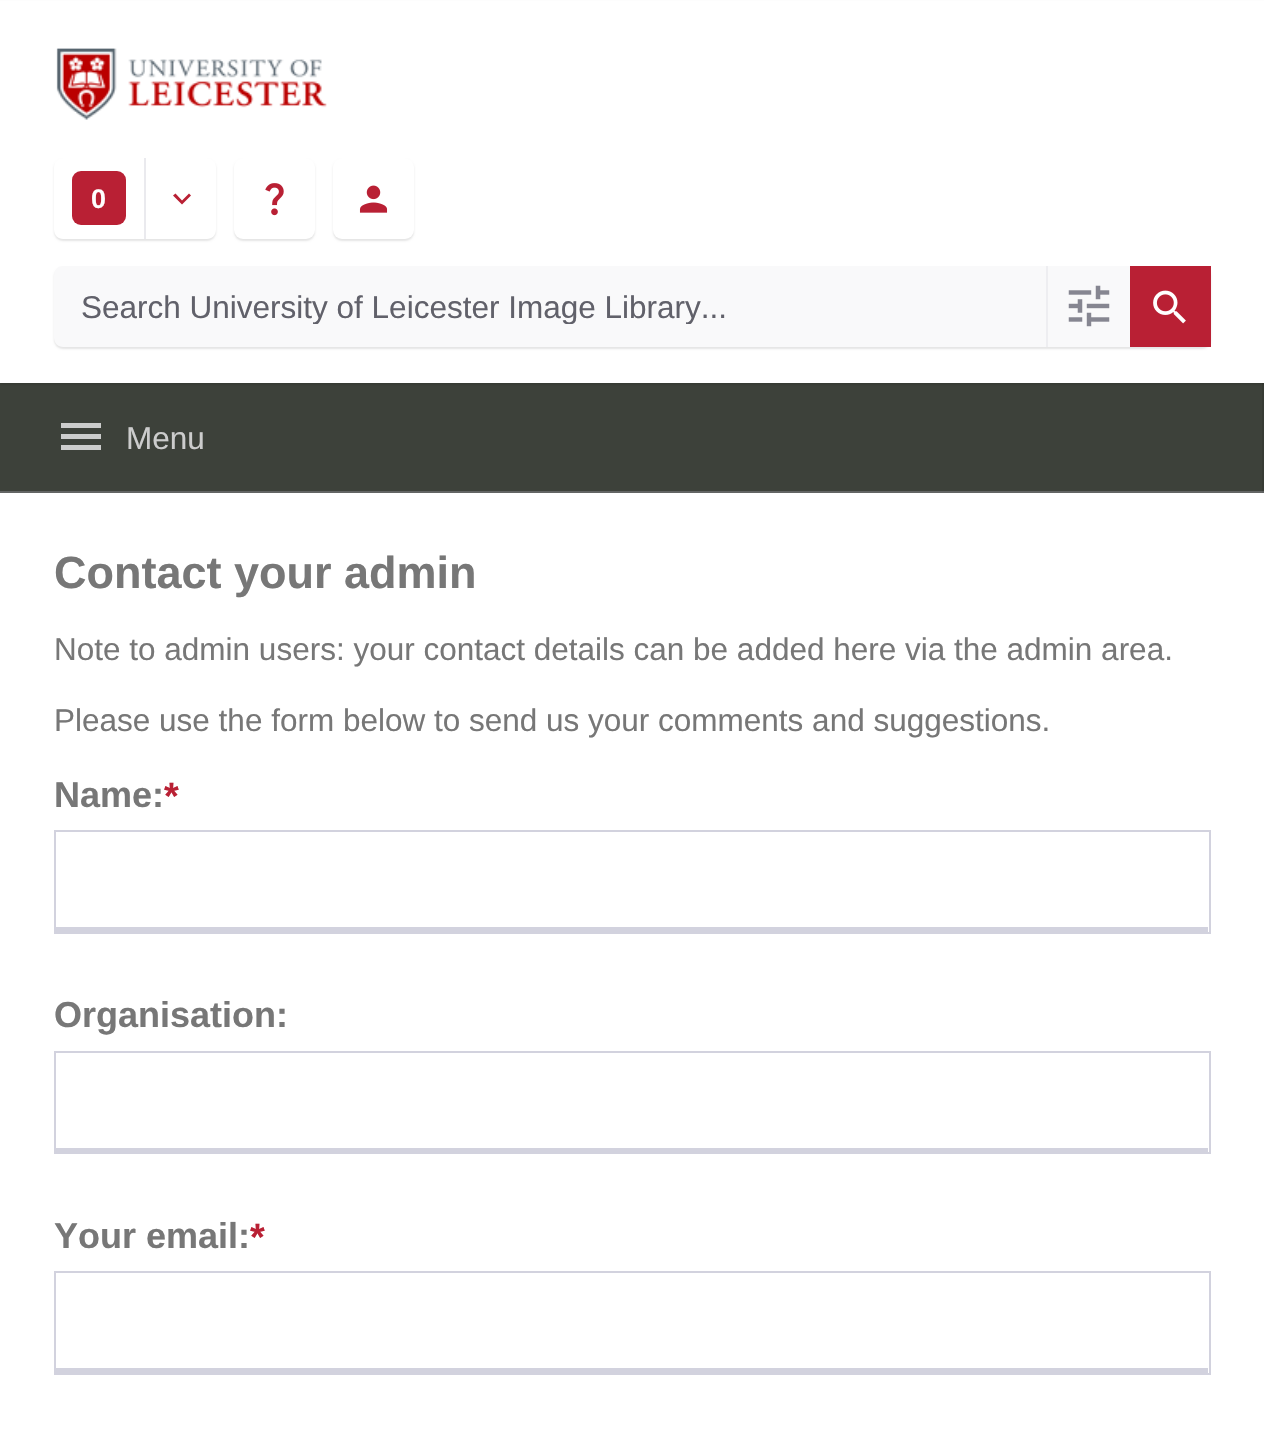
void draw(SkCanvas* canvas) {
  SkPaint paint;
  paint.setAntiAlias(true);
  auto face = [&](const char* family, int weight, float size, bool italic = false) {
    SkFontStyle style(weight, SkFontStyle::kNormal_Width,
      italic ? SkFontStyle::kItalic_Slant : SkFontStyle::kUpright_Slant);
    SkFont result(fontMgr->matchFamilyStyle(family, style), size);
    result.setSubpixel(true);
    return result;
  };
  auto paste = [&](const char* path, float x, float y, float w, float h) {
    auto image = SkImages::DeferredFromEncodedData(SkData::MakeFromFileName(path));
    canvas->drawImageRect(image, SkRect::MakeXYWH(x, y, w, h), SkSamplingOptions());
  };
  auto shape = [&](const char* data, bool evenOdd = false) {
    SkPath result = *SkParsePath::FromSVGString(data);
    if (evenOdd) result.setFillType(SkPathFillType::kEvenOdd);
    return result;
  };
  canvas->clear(0xffffffff);
  {
    const struct { float x, y, w, h; SkColor color; } items[] = {
      {0, 383, 1262, 108, 0xff3d413a},
      {0, 491, 1264, 2, 0xff636564},
      {1262, 383, 2, 110, 0xff373b34},
    };
    for (auto [x, y, w, h, color] : items) {
      paint.setColor(color);
      canvas->drawRect(SkRect::MakeXYWH(x, y, w, h), paint);
    }
  }
  paint.setColor(0x1a000000);
  paint.setMaskFilter(SkMaskFilter::MakeBlur(kNormal_SkBlurStyle, 1));
  canvas->drawRect(SkRect::MakeXYWH(0, 2, 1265, 383), paint);
  paint.setMaskFilter(nullptr);
  paint.setColor(0xffffffff);
  canvas->drawRect(SkRect::MakeXYWH(0, 1, 1264, 382), paint);
  paste("img/1.png", 56, 48, 271, 72);
  paint.setColor(0x1a000000);
  paint.setMaskFilter(SkMaskFilter::MakeBlur(kNormal_SkBlurStyle, 1));
  canvas->drawRoundRect(SkRect::MakeXYWH(54, 160, 162, 81), 9, 9, paint);
  paint.setMaskFilter(nullptr);
  paint.setColor(0xffffffff);
  canvas->drawPath(shape("M63 158H144V239H63C58 239 54 235 54 230V167C54 162 58 158 63 158Z"), paint);
  paint.setColor(0xffb92034);
  canvas->drawRoundRect(SkRect::MakeXYWH(72, 171, 54, 54), 9, 9, paint);
  paint.setColor(0xffffffff);
  canvas->drawPath(shape("M144 158H207C212 158 216 162 216 167V230C216 235 212 239 207 239H144Z"), paint);
  paint.setColor(0xffeaeaee);
  canvas->drawRect(SkRect::MakeXYWH(144, 158, 2, 81), paint);
  paint.setColor(0xffb92034);
  canvas->drawPath(shape("M175.5 193.5L182 200.5L189 193.5L191 195.5L182 204.5L173 195.5Z"), paint);
  paint.setColor(0x1a000000);
  paint.setMaskFilter(SkMaskFilter::MakeBlur(kNormal_SkBlurStyle, 1));
  canvas->drawRoundRect(SkRect::MakeXYWH(234, 160, 81, 81), 9, 9, paint);
  paint.setMaskFilter(nullptr);
  paint.setColor(0xffffffff);
  canvas->drawRoundRect(SkRect::MakeXYWH(234, 158, 81, 81), 9, 9, paint);
  paste("img/2.png", 265, 183, 19, 33);
  paint.setColor(0x1a000000);
  paint.setMaskFilter(SkMaskFilter::MakeBlur(kNormal_SkBlurStyle, 1));
  canvas->drawRoundRect(SkRect::MakeXYWH(333, 160, 81, 81), 9, 9, paint);
  paint.setMaskFilter(nullptr);
  paint.setColor(0xffffffff);
  canvas->drawRoundRect(SkRect::MakeXYWH(333, 158, 81, 81), 9, 9, paint);
  paste("img/3.png", 359, 185, 29, 28);
  paint.setColor(0x1a000000);
  paint.setMaskFilter(SkMaskFilter::MakeBlur(kNormal_SkBlurStyle, 1));
  canvas->drawRoundRect(SkRect::MakeXYWH(54, 268, 1157, 81), 9, 9, paint);
  paint.setMaskFilter(nullptr);
  paint.setColor(0xfff9f9fa);
  canvas->drawPath(shape("M63 266H1046V347H63C58 347 54 343 54 338V275C54 270 58 266 63 266Z"), paint);
  canvas->drawRect(SkRect::MakeXYWH(1048, 266, 82, 81), paint);
  paint.setColor(0xffeeeef1);
  canvas->drawRect(SkRect::MakeXYWH(1046, 266, 2, 81), paint);
  paste("img/4.png", 1068, 285, 42, 42);
  paint.setColor(0xffb92034);
  canvas->drawRect(SkRect::MakeXYWH(1130, 266, 81, 81), paint);
  paste("img/5.png", 1153, 290, 33, 34);
  paint.setColor(0xff5e6160);
  canvas->drawRect(SkRect::MakeXYWH(1262, 491, 2, 2), paint);
  paint.setColor(0xffcccccc);
  canvas->drawPath(shape("M61 423H101V428H61ZM61 439V434H101V439ZM61 450V445H101V450Z"), paint);
  paint.setColor(0xffd2d2de);
  canvas->drawRect(SkRect::MakeXYWH(56, 927, 1152, 5), paint);
  paint.setStroke(true);
  paint.setStrokeWidth(2);
  canvas->drawRect(SkRect::MakeXYWH(55, 831, 1155, 102), paint);
  paint.setStroke(false);
  canvas->drawRect(SkRect::MakeXYWH(56, 1148, 1152, 4), paint);
  paint.setStroke(true);
  canvas->drawRect(SkRect::MakeXYWH(55, 1052, 1155, 101), paint);
  paint.setStroke(false);
  canvas->drawRect(SkRect::MakeXYWH(56, 1368, 1152, 5), paint);
  paint.setStroke(true);
  canvas->drawRect(SkRect::MakeXYWH(55, 1272, 1155, 102), paint);
  auto f0 = face("Liberation Sans", 700, 27);
  paint.setStroke(false);
  paint.setColor(0xffffffff);
  canvas->drawString("0", 91, 208, f0, paint);
  canvas->save();
  canvas->clipRect(SkRect::MakeXYWH(81, 288, 965, 36));
  auto f1 = face("Liberation Sans", 400, 31.5f);
  paint.setColor(0xff61616a);
  canvas->drawString("Search University of Leicester Image Library...", 81, 318, f1, paint);
  canvas->restore();
  paint.setColor(0xffcccccc);
  canvas->drawString("Menu", 126, 449, f1, paint);
  auto f2 = face("Liberation Sans", 700, 45);
  paint.setColor(0xff777777);
  canvas->drawString("Contact your admin", 54, 588, f2, paint);
  canvas->drawString("Note to admin users: your contact details can be added here via the admin area.", 54, 660, f1, paint);
  canvas->drawString("Please use the form below to send us your comments and suggestions.", 54, 731, f1, paint);
  auto f3 = face("Liberation Sans", 700, 36);
  canvas->drawString("Name:", 54, 807, f3, paint);
  auto f4 = face("Liberation Sans", 700, 38);
  paint.setColor(0xffb92034);
  canvas->drawString("*", 164, 809, f4, paint);
  paint.setColor(0xff777777);
  canvas->drawString("Organisation:", 54, 1027, f3, paint);
  canvas->drawString("Your email:", 54, 1248, f3, paint);
  paint.setColor(0xffb92034);
  canvas->drawString("*", 250, 1250, f4, paint);
}
